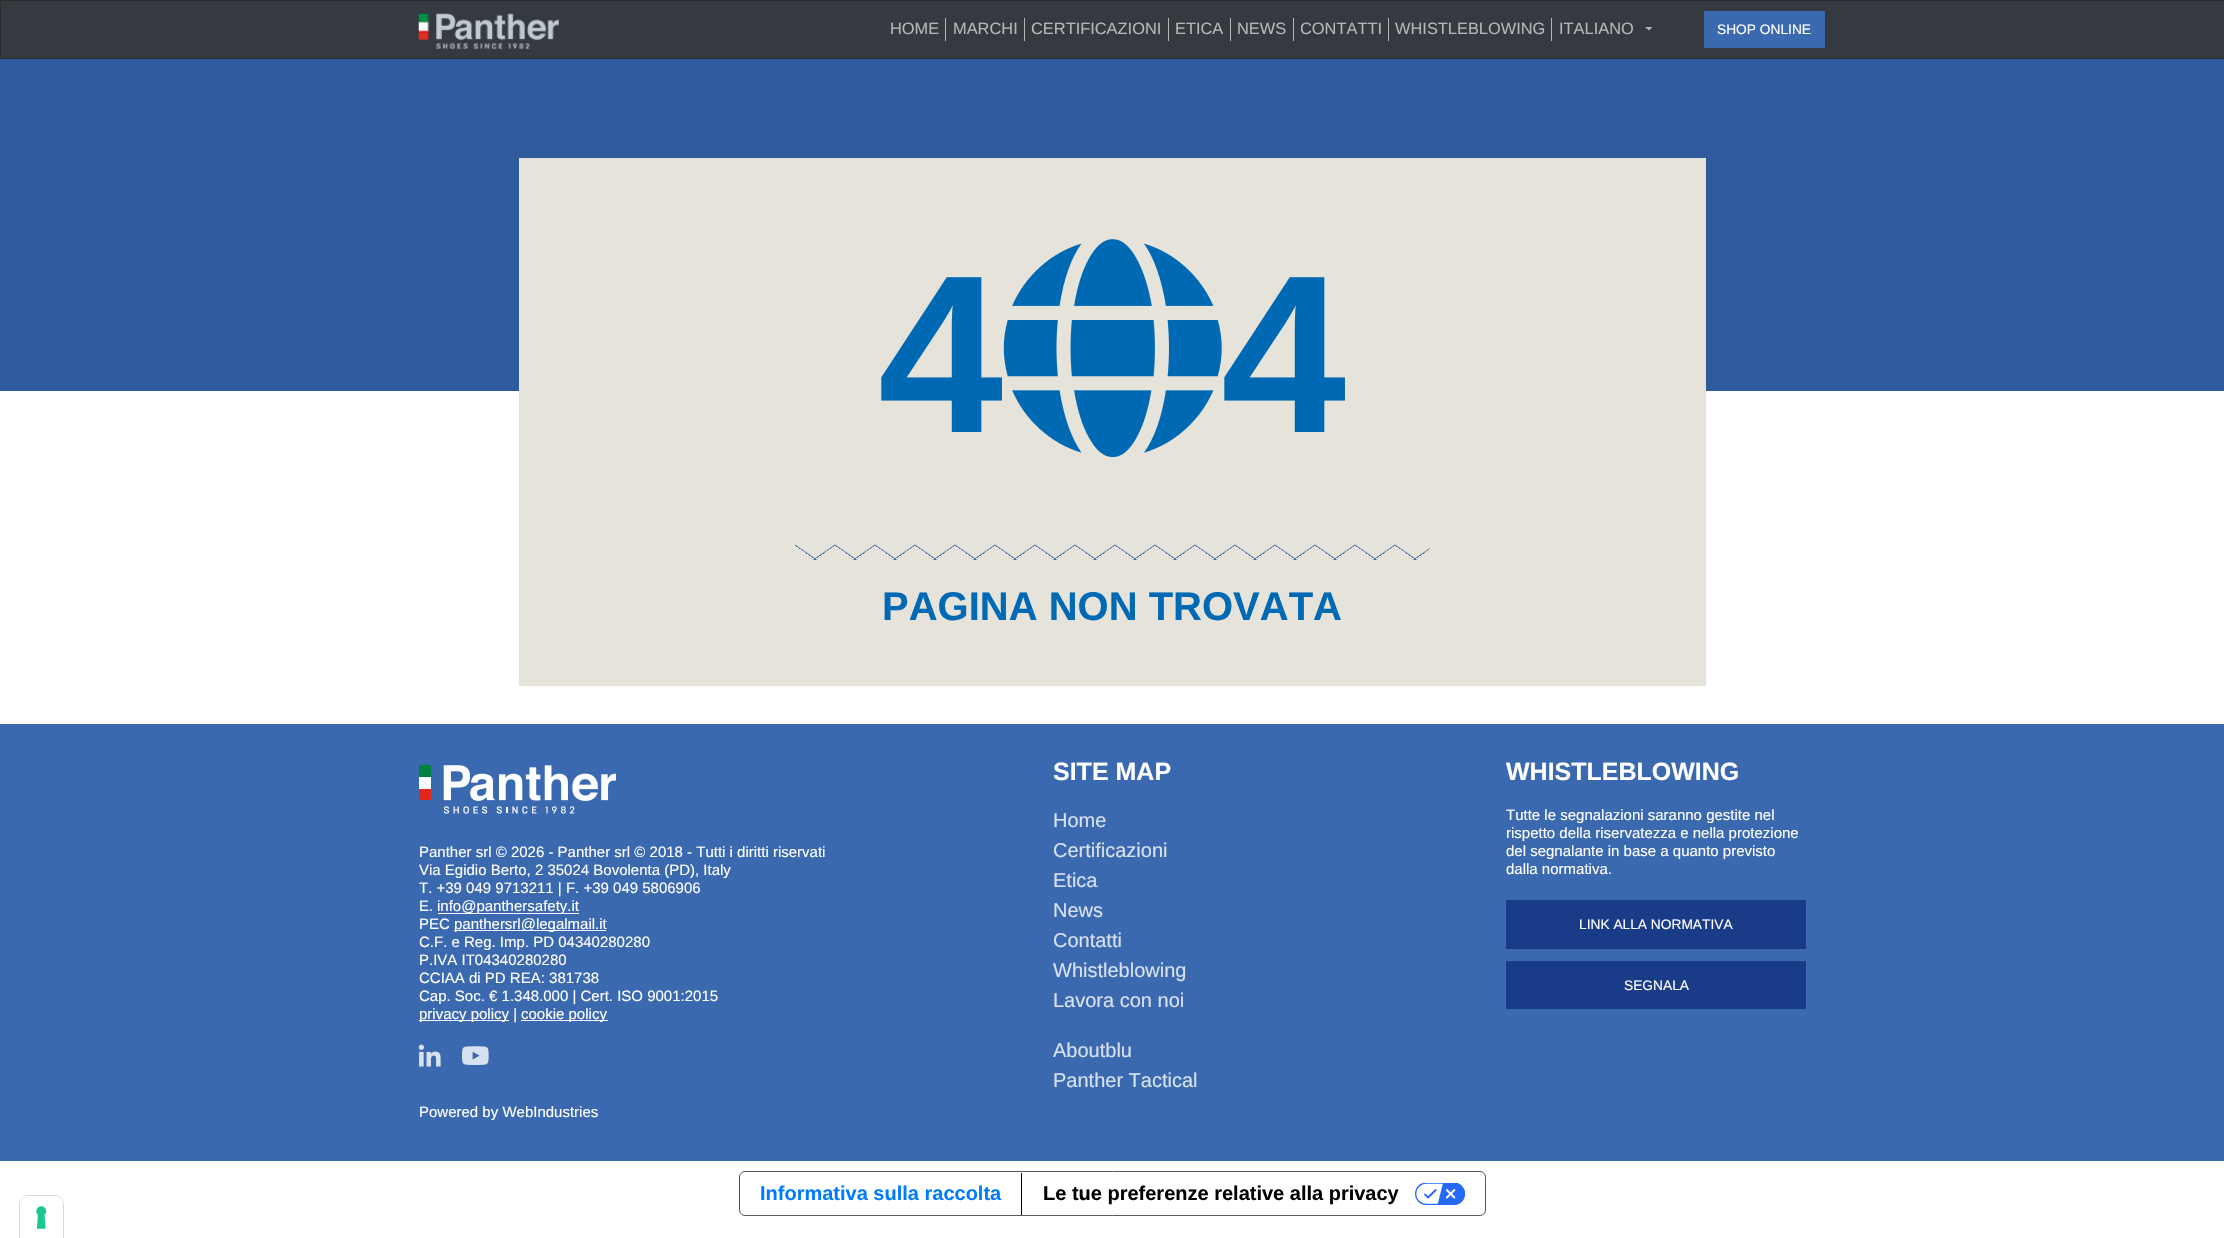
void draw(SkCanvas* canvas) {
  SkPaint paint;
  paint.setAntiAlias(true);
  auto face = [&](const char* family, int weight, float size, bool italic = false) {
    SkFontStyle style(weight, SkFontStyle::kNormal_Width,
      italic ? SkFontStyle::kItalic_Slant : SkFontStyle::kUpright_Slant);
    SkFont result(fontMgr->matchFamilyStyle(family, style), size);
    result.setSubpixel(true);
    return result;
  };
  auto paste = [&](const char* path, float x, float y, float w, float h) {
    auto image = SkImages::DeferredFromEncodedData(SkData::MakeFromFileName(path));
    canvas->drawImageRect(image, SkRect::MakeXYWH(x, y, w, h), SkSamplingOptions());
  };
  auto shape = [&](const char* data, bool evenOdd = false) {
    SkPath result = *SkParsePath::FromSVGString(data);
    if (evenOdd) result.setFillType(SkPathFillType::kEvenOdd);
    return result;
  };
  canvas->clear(0xffffffff);
  paint.setColor(0xff343a40);
  canvas->drawRect(SkRect::MakeXYWH(0.5f, 0.5f, 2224, 58), paint);
  paint.setStroke(true);
  paint.setStrokeWidth(1);
  paint.setColor(0xff2d2c2d);
  canvas->drawRect(SkRect::MakeXYWH(0.5f, 0.5f, 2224, 58), paint);
  paste("img/1.png", 418, 13, 141, 36);
  paint.setStroke(false);
  {
    const struct { float x, y, w, h; SkColor color; } items[] = {
      {945, 18, 1, 23, 0xffb6b6b6},
      {1024, 18, 1, 23, 0xffb6b6b6},
      {1168, 18, 1, 23, 0xffb6b6b6},
      {1230, 18, 1, 23, 0xffb6b6b6},
      {1293, 18, 1, 23, 0xffb6b6b6},
      {1388, 18, 1, 23, 0xffb6b6b6},
      {1551, 18, 1, 23, 0xffb6b6b6},
    };
    for (auto [x, y, w, h, color] : items) {
      paint.setColor(color);
      canvas->drawRect(SkRect::MakeXYWH(x, y, w, h), paint);
    }
  }
  canvas->drawPath(shape("M1645 27H1652.5L1649 30.5Z"), paint);
  {
    const struct { float x, y, w, h; SkColor color; } items[] = {
      {1704, 11, 121, 37, 0xff3b69b0},
      {0, 59, 2224, 332, 0xff2f5a9c},
      {519, 158, 1187, 528, 0xffe5e3da},
    };
    for (auto [x, y, w, h, color] : items) {
      paint.setColor(color);
      canvas->drawRect(SkRect::MakeXYWH(x, y, w, h), paint);
    }
  }
  paste("img/2.png", 1003, 239, 219, 219);
  {
    const SkColor colors[] = {0xffe5e3da, 0xffe5e3da, 0xff2f5a9c, 0xffe5e3da};
    const float stops[] = {0, 0.49f, 0.49f, 0.51f};
    const SkPoint ends[] = {{794, 589}, {836, 528}};
    paint.setShader(SkGradientShader::MakeLinear(ends, colors, stops, 4, SkTileMode::kClamp));
    paint.setAlpha(255);
  }
  canvas->drawRect(SkRect::MakeXYWH(795, 544, 23, 16), paint);
  {
    const SkColor colors[] = {0xffe5e3da, 0xffe5e3da, 0xff2f5a9c, 0xffe5e3da};
    const float stops[] = {0, 0.49f, 0.49f, 0.51f};
    const SkPoint ends[] = {{834, 589}, {876, 528}};
    paint.setShader(SkGradientShader::MakeLinear(ends, colors, stops, 4, SkTileMode::kClamp));
    paint.setAlpha(255);
  }
  canvas->drawRect(SkRect::MakeXYWH(835, 544, 23, 16), paint);
  {
    const SkColor colors[] = {0xffe5e3da, 0xffe5e3da, 0xff2f5a9c, 0xffe5e3da};
    const float stops[] = {0, 0.49f, 0.49f, 0.51f};
    const SkPoint ends[] = {{874, 589}, {916, 528}};
    paint.setShader(SkGradientShader::MakeLinear(ends, colors, stops, 4, SkTileMode::kClamp));
    paint.setAlpha(255);
  }
  canvas->drawRect(SkRect::MakeXYWH(875, 544, 23, 16), paint);
  {
    const SkColor colors[] = {0xffe5e3da, 0xffe5e3da, 0xff2f5a9c, 0xffe5e3da};
    const float stops[] = {0, 0.49f, 0.49f, 0.51f};
    const SkPoint ends[] = {{914, 589}, {956, 528}};
    paint.setShader(SkGradientShader::MakeLinear(ends, colors, stops, 4, SkTileMode::kClamp));
    paint.setAlpha(255);
  }
  canvas->drawRect(SkRect::MakeXYWH(915, 544, 23, 16), paint);
  {
    const SkColor colors[] = {0xffe5e3da, 0xffe5e3da, 0xff2f5a9c, 0xffe5e3da};
    const float stops[] = {0, 0.49f, 0.49f, 0.51f};
    const SkPoint ends[] = {{954, 589}, {996, 528}};
    paint.setShader(SkGradientShader::MakeLinear(ends, colors, stops, 4, SkTileMode::kClamp));
    paint.setAlpha(255);
  }
  canvas->drawRect(SkRect::MakeXYWH(955, 544, 23, 16), paint);
  {
    const SkColor colors[] = {0xffe5e3da, 0xffe5e3da, 0xff2f5a9c, 0xffe5e3da};
    const float stops[] = {0, 0.49f, 0.49f, 0.51f};
    const SkPoint ends[] = {{994, 589}, {1036, 528}};
    paint.setShader(SkGradientShader::MakeLinear(ends, colors, stops, 4, SkTileMode::kClamp));
    paint.setAlpha(255);
  }
  canvas->drawRect(SkRect::MakeXYWH(995, 544, 23, 16), paint);
  {
    const SkColor colors[] = {0xffe5e3da, 0xffe5e3da, 0xff2f5a9c, 0xffe5e3da};
    const float stops[] = {0, 0.49f, 0.49f, 0.51f};
    const SkPoint ends[] = {{1034, 589}, {1076, 528}};
    paint.setShader(SkGradientShader::MakeLinear(ends, colors, stops, 4, SkTileMode::kClamp));
    paint.setAlpha(255);
  }
  canvas->drawRect(SkRect::MakeXYWH(1035, 544, 23, 16), paint);
  {
    const SkColor colors[] = {0xffe5e3da, 0xffe5e3da, 0xff2f5a9c, 0xffe5e3da};
    const float stops[] = {0, 0.49f, 0.49f, 0.51f};
    const SkPoint ends[] = {{1074, 589}, {1116, 528}};
    paint.setShader(SkGradientShader::MakeLinear(ends, colors, stops, 4, SkTileMode::kClamp));
    paint.setAlpha(255);
  }
  canvas->drawRect(SkRect::MakeXYWH(1075, 544, 23, 16), paint);
  {
    const SkColor colors[] = {0xffe5e3da, 0xffe5e3da, 0xff2f5a9c, 0xffe5e3da};
    const float stops[] = {0, 0.49f, 0.49f, 0.51f};
    const SkPoint ends[] = {{1114, 589}, {1156, 528}};
    paint.setShader(SkGradientShader::MakeLinear(ends, colors, stops, 4, SkTileMode::kClamp));
    paint.setAlpha(255);
  }
  canvas->drawRect(SkRect::MakeXYWH(1115, 544, 23, 16), paint);
  {
    const SkColor colors[] = {0xffe5e3da, 0xffe5e3da, 0xff2f5a9c, 0xffe5e3da};
    const float stops[] = {0, 0.49f, 0.49f, 0.51f};
    const SkPoint ends[] = {{1154, 589}, {1196, 528}};
    paint.setShader(SkGradientShader::MakeLinear(ends, colors, stops, 4, SkTileMode::kClamp));
    paint.setAlpha(255);
  }
  canvas->drawRect(SkRect::MakeXYWH(1155, 544, 23, 16), paint);
  {
    const SkColor colors[] = {0xffe5e3da, 0xffe5e3da, 0xff2f5a9c, 0xffe5e3da};
    const float stops[] = {0, 0.49f, 0.49f, 0.51f};
    const SkPoint ends[] = {{1194, 589}, {1236, 528}};
    paint.setShader(SkGradientShader::MakeLinear(ends, colors, stops, 4, SkTileMode::kClamp));
    paint.setAlpha(255);
  }
  canvas->drawRect(SkRect::MakeXYWH(1195, 544, 23, 16), paint);
  {
    const SkColor colors[] = {0xffe5e3da, 0xffe5e3da, 0xff2f5a9c, 0xffe5e3da};
    const float stops[] = {0, 0.49f, 0.49f, 0.51f};
    const SkPoint ends[] = {{1234, 589}, {1276, 528}};
    paint.setShader(SkGradientShader::MakeLinear(ends, colors, stops, 4, SkTileMode::kClamp));
    paint.setAlpha(255);
  }
  canvas->drawRect(SkRect::MakeXYWH(1235, 544, 23, 16), paint);
  {
    const SkColor colors[] = {0xffe5e3da, 0xffe5e3da, 0xff2f5a9c, 0xffe5e3da};
    const float stops[] = {0, 0.49f, 0.49f, 0.51f};
    const SkPoint ends[] = {{1274, 589}, {1316, 528}};
    paint.setShader(SkGradientShader::MakeLinear(ends, colors, stops, 4, SkTileMode::kClamp));
    paint.setAlpha(255);
  }
  canvas->drawRect(SkRect::MakeXYWH(1275, 544, 23, 16), paint);
  {
    const SkColor colors[] = {0xffe5e3da, 0xffe5e3da, 0xff2f5a9c, 0xffe5e3da};
    const float stops[] = {0, 0.49f, 0.49f, 0.51f};
    const SkPoint ends[] = {{1314, 589}, {1356, 528}};
    paint.setShader(SkGradientShader::MakeLinear(ends, colors, stops, 4, SkTileMode::kClamp));
    paint.setAlpha(255);
  }
  canvas->drawRect(SkRect::MakeXYWH(1315, 544, 23, 16), paint);
  {
    const SkColor colors[] = {0xffe5e3da, 0xffe5e3da, 0xff2f5a9c, 0xffe5e3da};
    const float stops[] = {0, 0.49f, 0.49f, 0.51f};
    const SkPoint ends[] = {{1354, 589}, {1396, 528}};
    paint.setShader(SkGradientShader::MakeLinear(ends, colors, stops, 4, SkTileMode::kClamp));
    paint.setAlpha(255);
  }
  canvas->drawRect(SkRect::MakeXYWH(1355, 544, 23, 16), paint);
  {
    const SkColor colors[] = {0xffe5e3da, 0xffe5e3da, 0xff2f5a9c, 0xffe5e3da};
    const float stops[] = {0, 0.49f, 0.49f, 0.51f};
    const SkPoint ends[] = {{1394, 589}, {1436, 528}};
    paint.setShader(SkGradientShader::MakeLinear(ends, colors, stops, 4, SkTileMode::kClamp));
    paint.setAlpha(255);
  }
  canvas->drawRect(SkRect::MakeXYWH(1395, 544, 23, 16), paint);
  {
    const SkColor colors[] = {0x00000000, 0x002f5a9c, 0xff2f5a9c, 0x002f5a9c};
    const float stops[] = {0, 0.49f, 0.49f, 0.51f};
    const SkPoint ends[] = {{836, 589}, {794, 528}};
    paint.setShader(SkGradientShader::MakeLinear(ends, colors, stops, 4, SkTileMode::kClamp));
    paint.setAlpha(255);
  }
  canvas->drawRect(SkRect::MakeXYWH(812, 544, 23, 16), paint);
  {
    const SkColor colors[] = {0x00000000, 0x002f5a9c, 0xff2f5a9c, 0x002f5a9c};
    const float stops[] = {0, 0.49f, 0.49f, 0.51f};
    const SkPoint ends[] = {{876, 589}, {834, 528}};
    paint.setShader(SkGradientShader::MakeLinear(ends, colors, stops, 4, SkTileMode::kClamp));
    paint.setAlpha(255);
  }
  canvas->drawRect(SkRect::MakeXYWH(852, 544, 23, 16), paint);
  {
    const SkColor colors[] = {0x00000000, 0x002f5a9c, 0xff2f5a9c, 0x002f5a9c};
    const float stops[] = {0, 0.49f, 0.49f, 0.51f};
    const SkPoint ends[] = {{916, 589}, {874, 528}};
    paint.setShader(SkGradientShader::MakeLinear(ends, colors, stops, 4, SkTileMode::kClamp));
    paint.setAlpha(255);
  }
  canvas->drawRect(SkRect::MakeXYWH(892, 544, 23, 16), paint);
  {
    const SkColor colors[] = {0x00000000, 0x002f5a9c, 0xff2f5a9c, 0x002f5a9c};
    const float stops[] = {0, 0.49f, 0.49f, 0.51f};
    const SkPoint ends[] = {{956, 589}, {914, 528}};
    paint.setShader(SkGradientShader::MakeLinear(ends, colors, stops, 4, SkTileMode::kClamp));
    paint.setAlpha(255);
  }
  canvas->drawRect(SkRect::MakeXYWH(932, 544, 23, 16), paint);
  {
    const SkColor colors[] = {0x00000000, 0x002f5a9c, 0xff2f5a9c, 0x002f5a9c};
    const float stops[] = {0, 0.49f, 0.49f, 0.51f};
    const SkPoint ends[] = {{996, 589}, {954, 528}};
    paint.setShader(SkGradientShader::MakeLinear(ends, colors, stops, 4, SkTileMode::kClamp));
    paint.setAlpha(255);
  }
  canvas->drawRect(SkRect::MakeXYWH(972, 544, 23, 16), paint);
  {
    const SkColor colors[] = {0x00000000, 0x002f5a9c, 0xff2f5a9c, 0x002f5a9c};
    const float stops[] = {0, 0.49f, 0.49f, 0.51f};
    const SkPoint ends[] = {{1036, 589}, {994, 528}};
    paint.setShader(SkGradientShader::MakeLinear(ends, colors, stops, 4, SkTileMode::kClamp));
    paint.setAlpha(255);
  }
  canvas->drawRect(SkRect::MakeXYWH(1012, 544, 23, 16), paint);
  {
    const SkColor colors[] = {0x00000000, 0x002f5a9c, 0xff2f5a9c, 0x002f5a9c};
    const float stops[] = {0, 0.49f, 0.49f, 0.51f};
    const SkPoint ends[] = {{1076, 589}, {1034, 528}};
    paint.setShader(SkGradientShader::MakeLinear(ends, colors, stops, 4, SkTileMode::kClamp));
    paint.setAlpha(255);
  }
  canvas->drawRect(SkRect::MakeXYWH(1052, 544, 23, 16), paint);
  {
    const SkColor colors[] = {0x00000000, 0x002f5a9c, 0xff2f5a9c, 0x002f5a9c};
    const float stops[] = {0, 0.49f, 0.49f, 0.51f};
    const SkPoint ends[] = {{1116, 589}, {1074, 528}};
    paint.setShader(SkGradientShader::MakeLinear(ends, colors, stops, 4, SkTileMode::kClamp));
    paint.setAlpha(255);
  }
  canvas->drawRect(SkRect::MakeXYWH(1092, 544, 23, 16), paint);
  {
    const SkColor colors[] = {0x00000000, 0x002f5a9c, 0xff2f5a9c, 0x002f5a9c};
    const float stops[] = {0, 0.49f, 0.49f, 0.51f};
    const SkPoint ends[] = {{1156, 589}, {1114, 528}};
    paint.setShader(SkGradientShader::MakeLinear(ends, colors, stops, 4, SkTileMode::kClamp));
    paint.setAlpha(255);
  }
  canvas->drawRect(SkRect::MakeXYWH(1132, 544, 23, 16), paint);
  {
    const SkColor colors[] = {0x00000000, 0x002f5a9c, 0xff2f5a9c, 0x002f5a9c};
    const float stops[] = {0, 0.49f, 0.49f, 0.51f};
    const SkPoint ends[] = {{1196, 589}, {1154, 528}};
    paint.setShader(SkGradientShader::MakeLinear(ends, colors, stops, 4, SkTileMode::kClamp));
    paint.setAlpha(255);
  }
  canvas->drawRect(SkRect::MakeXYWH(1172, 544, 23, 16), paint);
  {
    const SkColor colors[] = {0x00000000, 0x002f5a9c, 0xff2f5a9c, 0x002f5a9c};
    const float stops[] = {0, 0.49f, 0.49f, 0.51f};
    const SkPoint ends[] = {{1236, 589}, {1194, 528}};
    paint.setShader(SkGradientShader::MakeLinear(ends, colors, stops, 4, SkTileMode::kClamp));
    paint.setAlpha(255);
  }
  canvas->drawRect(SkRect::MakeXYWH(1212, 544, 23, 16), paint);
  {
    const SkColor colors[] = {0x00000000, 0x002f5a9c, 0xff2f5a9c, 0x002f5a9c};
    const float stops[] = {0, 0.49f, 0.49f, 0.51f};
    const SkPoint ends[] = {{1276, 589}, {1234, 528}};
    paint.setShader(SkGradientShader::MakeLinear(ends, colors, stops, 4, SkTileMode::kClamp));
    paint.setAlpha(255);
  }
  canvas->drawRect(SkRect::MakeXYWH(1252, 544, 23, 16), paint);
  {
    const SkColor colors[] = {0x00000000, 0x002f5a9c, 0xff2f5a9c, 0x002f5a9c};
    const float stops[] = {0, 0.49f, 0.49f, 0.51f};
    const SkPoint ends[] = {{1316, 589}, {1274, 528}};
    paint.setShader(SkGradientShader::MakeLinear(ends, colors, stops, 4, SkTileMode::kClamp));
    paint.setAlpha(255);
  }
  canvas->drawRect(SkRect::MakeXYWH(1292, 544, 23, 16), paint);
  {
    const SkColor colors[] = {0x00000000, 0x002f5a9c, 0xff2f5a9c, 0x002f5a9c};
    const float stops[] = {0, 0.49f, 0.49f, 0.51f};
    const SkPoint ends[] = {{1356, 589}, {1314, 528}};
    paint.setShader(SkGradientShader::MakeLinear(ends, colors, stops, 4, SkTileMode::kClamp));
    paint.setAlpha(255);
  }
  canvas->drawRect(SkRect::MakeXYWH(1332, 544, 23, 16), paint);
  {
    const SkColor colors[] = {0x00000000, 0x002f5a9c, 0xff2f5a9c, 0x002f5a9c};
    const float stops[] = {0, 0.49f, 0.49f, 0.51f};
    const SkPoint ends[] = {{1396, 589}, {1354, 528}};
    paint.setShader(SkGradientShader::MakeLinear(ends, colors, stops, 4, SkTileMode::kClamp));
    paint.setAlpha(255);
  }
  canvas->drawRect(SkRect::MakeXYWH(1372, 544, 23, 16), paint);
  {
    const SkColor colors[] = {0x00000000, 0x002f5a9c, 0xff2f5a9c, 0x002f5a9c};
    const float stops[] = {0, 0.49f, 0.49f, 0.51f};
    const SkPoint ends[] = {{1436, 589}, {1394, 528}};
    paint.setShader(SkGradientShader::MakeLinear(ends, colors, stops, 4, SkTileMode::kClamp));
    paint.setAlpha(255);
  }
  canvas->drawRect(SkRect::MakeXYWH(1412, 548, 18, 12), paint);
  paint.setShader(nullptr);
  paint.setColor(0xff3b69b0);
  canvas->drawRect(SkRect::MakeXYWH(0, 724, 2224, 437), paint);
  paste("img/3.png", 419, 765, 197, 49);
  {
    const struct { float x, y, w, h; SkColor color; } items[] = {
      {438, 913, 141, 1, 0xffffffff},
      {454, 930, 152, 1, 0xffffffff},
      {419, 1020, 90, 1, 0xffffffff},
      {521, 1020, 87, 1, 0xffffffff},
    };
    for (auto [x, y, w, h, color] : items) {
      paint.setColor(color);
      canvas->drawRect(SkRect::MakeXYWH(x, y, w, h), paint);
    }
  }
  paste("img/4.png", 418, 1044, 23, 23);
  paste("img/5.png", 462, 1046, 27, 19);
  paint.setColor(0xff1a3b87);
  canvas->drawRect(SkRect::MakeXYWH(1506, 900, 300, 49), paint);
  canvas->drawRect(SkRect::MakeXYWH(1506, 961, 300, 48), paint);
  paint.setStroke(true);
  paint.setColor(0xffd9d9d9);
  canvas->drawPath(shape("M28 1195.5H55C59.5 1195.5 63.5 1199.5 63.5 1204V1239.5H19.5V1204C19.5 1199.5 23.5 1195.5 28 1195.5Z"), paint);
  paint.setStroke(false);
  paint.setColor(0xffffffff);
  canvas->drawPath(shape("M28 1196H55C59.5 1196 63 1199.5 63 1204V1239H20V1204C20 1199.5 23.5 1196 28 1196Z"), paint);
  paste("img/6.png", 36, 1206, 11, 23);
  paint.setStroke(true);
  paint.setColor(0xff595959);
  canvas->drawRoundRect(SkRect::MakeXYWH(739.5f, 1171.5f, 746, 44), 5.5f, 5.5f, paint);
  paint.setStroke(false);
  paint.setColor(0xff000000);
  canvas->drawRect(SkRect::MakeXYWH(1021, 1173, 1, 42), paint);
  paste("img/7.png", 1415, 1183, 50, 22);
  auto f0 = face("Liberation Sans", 400, 16.4f);
  paint.setColor(0xffb6b6b6);
  {
    const struct { const char* s; float x, y; } items[] = {
      {"HOME", 890, 34},
      {"MARCHI", 953, 34},
      {"CERTIFICAZIONI", 1031, 34},
      {"ETICA", 1175, 34},
      {"NEWS", 1237, 34},
      {"CONTATTI", 1300, 34},
      {"WHISTLEBLOWING", 1395, 34},
      {"ITALIANO", 1559, 34},
    };
    for (auto [s, x, y] : items) {
      canvas->drawString(s, x, y, f0, paint);
    }
  }
  auto f1 = face("Liberation Sans", 400, 13.75f);
  paint.setColor(0xffffffff);
  canvas->drawString("SHOP ONLINE", 1717, 34, f1, paint);
  auto f2 = face("Liberation Sans", 700, 225);
  paint.setColor(0xff0069b4);
  canvas->drawString("4", 878, 432, f2, paint);
  canvas->drawString("4", 1221, 432, f2, paint);
  auto f3 = face("Liberation Sans", 700, 40);
  canvas->drawString("PAGINA NON TROVATA", 882, 620, f3, paint);
  auto f4 = face("Liberation Sans", 400, 15);
  paint.setColor(0xffffffff);
  {
    const struct { const char* s; float x, y; } items[] = {
      {"Panther srl © 2026 - Panther srl © 2018 - Tutti i diritti riservati", 419, 857},
      {"Via Egidio Berto, 2 35024 Bovolenta (PD), Italy", 419, 875},
      {"T. +39 049 9713211 | F. +39 049 5806906", 419, 893},
      {"E.", 419, 911},
      {"info@panthersafety.it", 437, 911},
      {"PEC", 419, 929},
      {"panthersrl@legalmail.it", 454, 929},
      {"C.F. e Reg. Imp. PD 04340280280", 419, 947},
      {"P.IVA IT04340280280", 419, 965},
      {"CCIAA di PD REA: 381738", 419, 983},
      {"Cap. Soc. € 1.348.000 | Cert. ISO 9001:2015", 419, 1001},
      {"privacy policy |", 419, 1019},
      {"cookie policy", 521, 1019},
    };
    for (auto [s, x, y] : items) {
      canvas->drawString(s, x, y, f4, paint);
    }
  }
  auto f5 = face("Liberation Sans", 700, 25);
  canvas->drawString("SITE MAP", 1053, 780, f5, paint);
  auto f6 = face("Liberation Sans", 400, 20);
  paint.setColor(0xffd8e1ef);
  {
    const struct { const char* s; float x, y; } items[] = {
      {"Home", 1053, 827},
      {"Certificazioni", 1053, 857},
      {"Etica", 1053, 887},
      {"News", 1053, 917},
      {"Contatti", 1053, 947},
      {"Whistleblowing", 1053, 977},
      {"Lavora con noi", 1053, 1007},
      {"Aboutblu", 1053, 1057},
      {"Panther Tactical", 1053, 1087},
    };
    for (auto [s, x, y] : items) {
      canvas->drawString(s, x, y, f6, paint);
    }
  }
  paint.setColor(0xffffffff);
  canvas->drawString("WHISTLEBLOWING", 1506, 780, f5, paint);
  {
    const struct { const char* s; float x, y; } items[] = {
      {"Tutte le segnalazioni saranno gestite nel", 1506, 820},
      {"rispetto della riservatezza e nella protezione", 1506, 838},
      {"del segnalante in base a quanto previsto", 1506, 856},
      {"dalla normativa.", 1506, 874},
    };
    for (auto [s, x, y] : items) {
      canvas->drawString(s, x, y, f4, paint);
    }
  }
  canvas->drawString("LINK ALLA NORMATIVA", 1579, 929, f1, paint);
  canvas->drawString("SEGNALA", 1624, 990, f1, paint);
  canvas->drawString("Powered by WebIndustries", 419, 1117, f4, paint);
  auto f7 = face("Liberation Sans", 700, 20);
  paint.setColor(0xff007bff);
  canvas->drawString("Informativa sulla raccolta", 760, 1200, f7, paint);
  paint.setColor(0xff000000);
  canvas->drawString("Le tue preferenze relative alla privacy", 1043, 1200, f7, paint);
}
